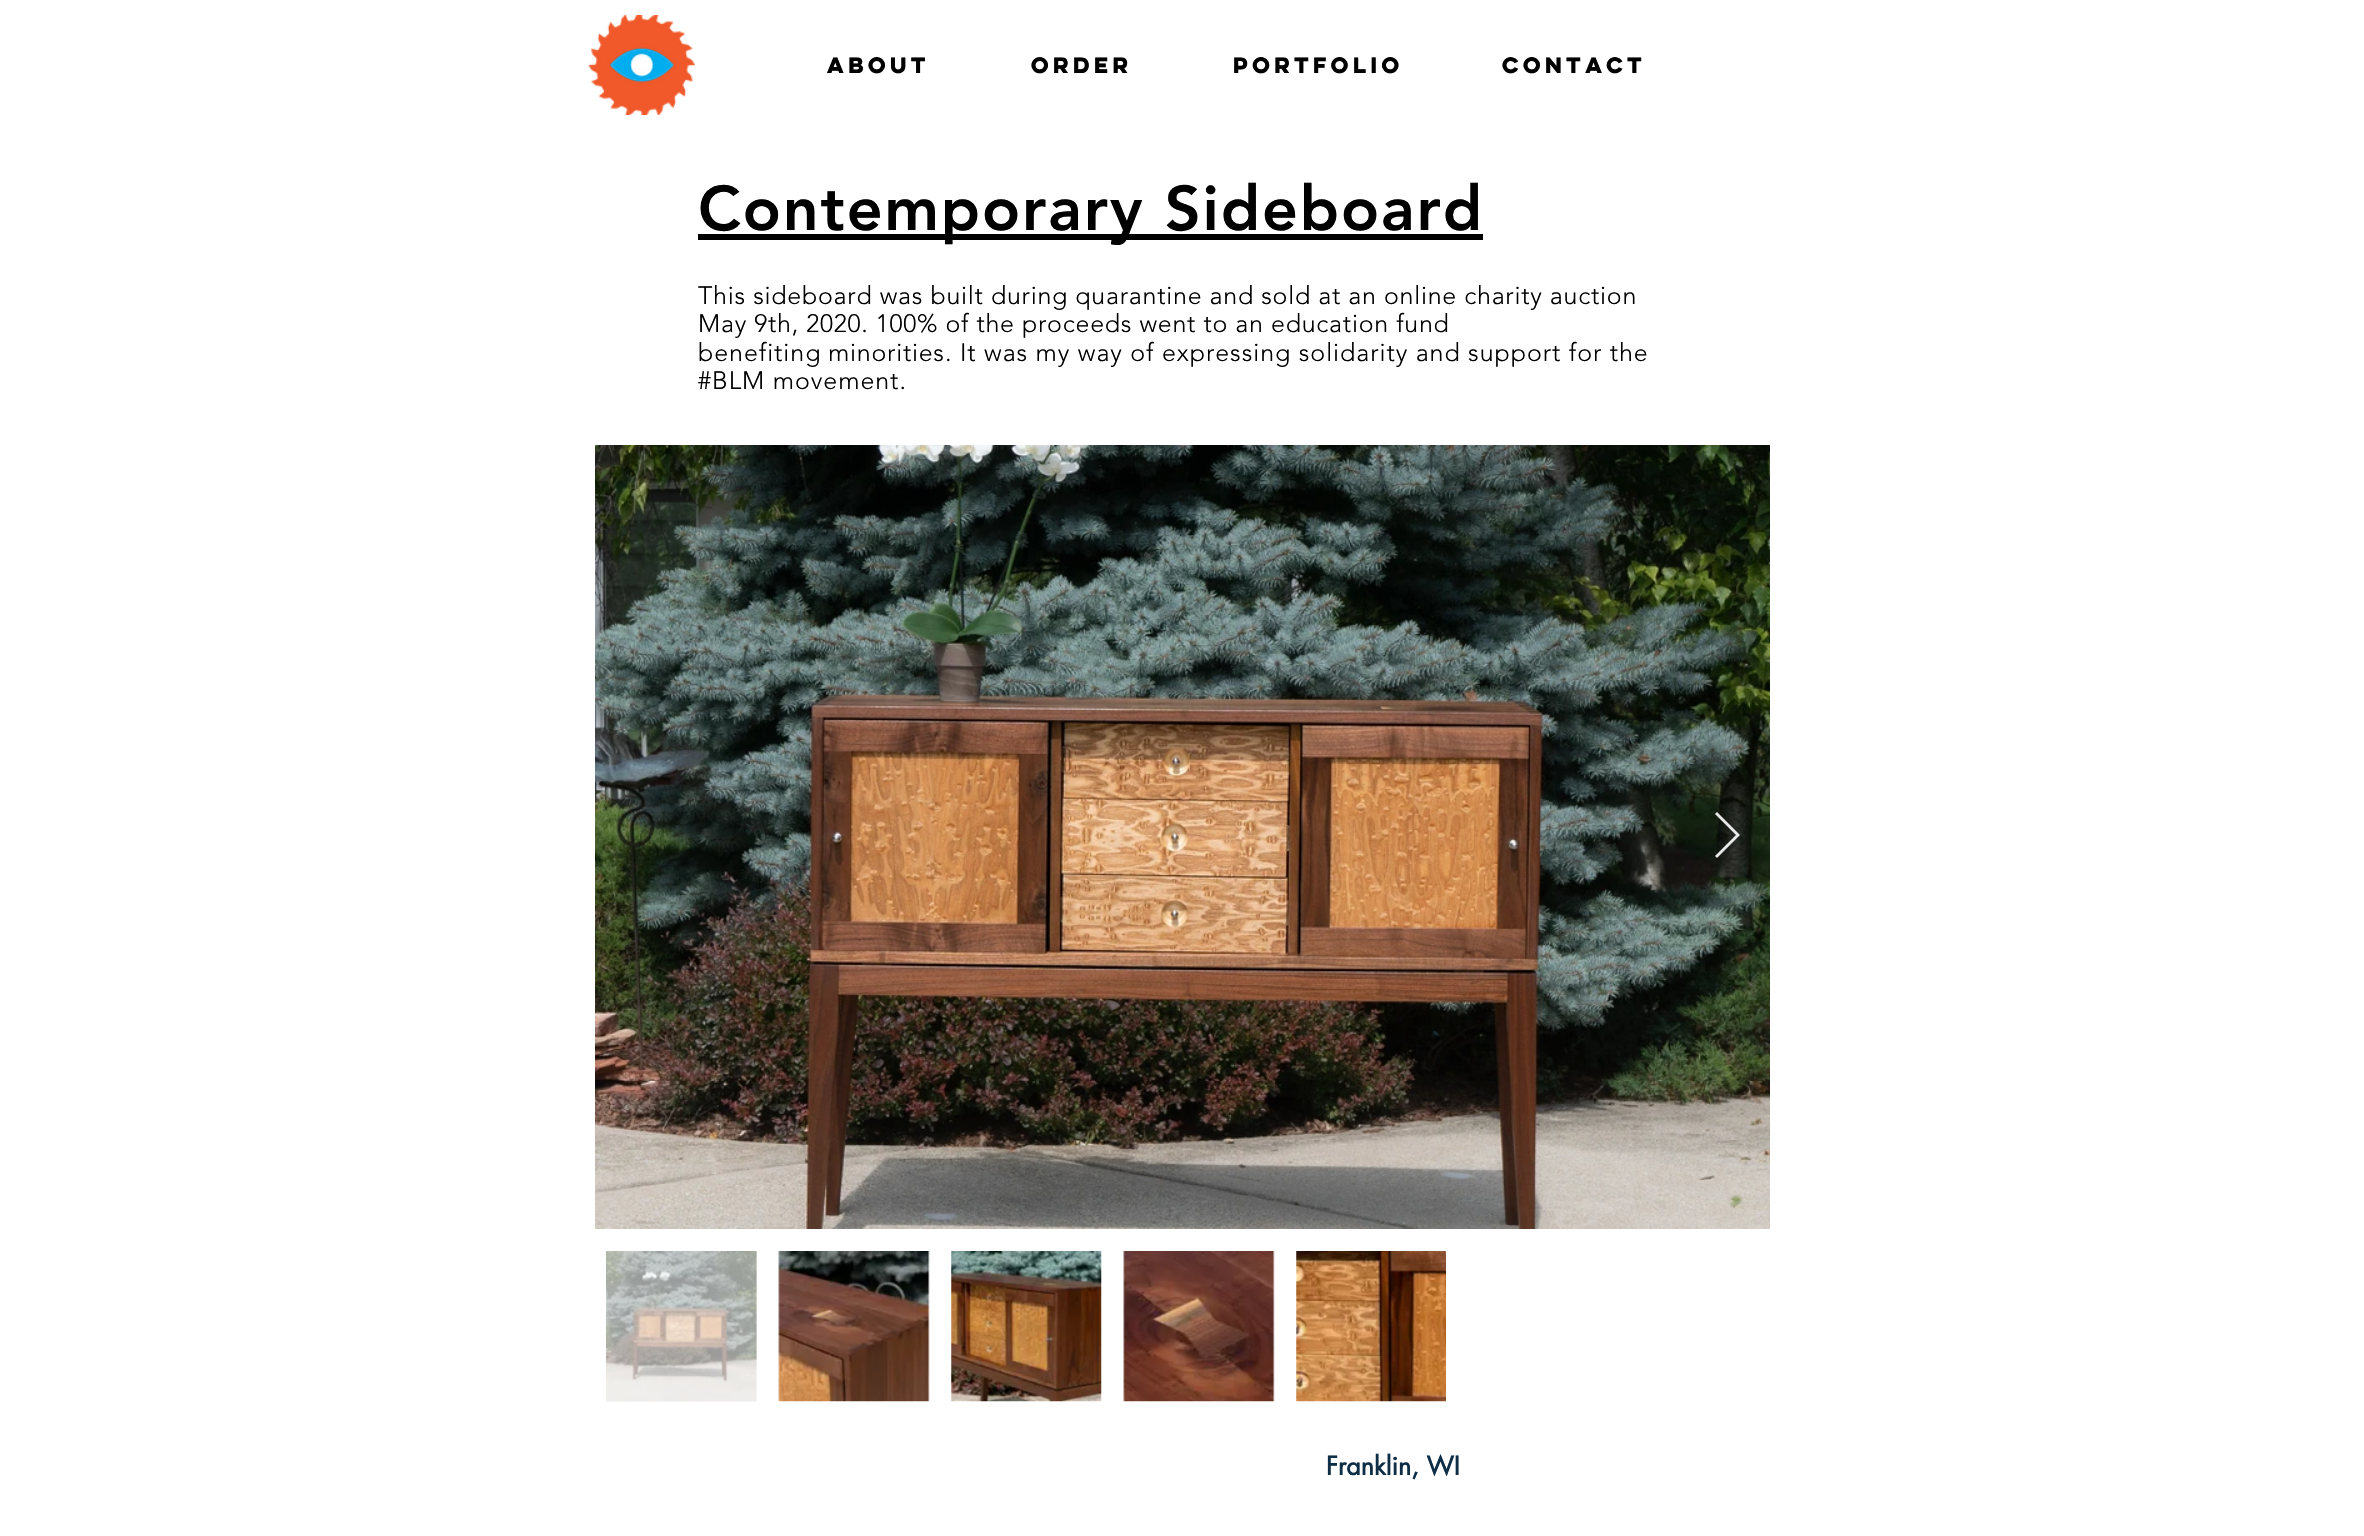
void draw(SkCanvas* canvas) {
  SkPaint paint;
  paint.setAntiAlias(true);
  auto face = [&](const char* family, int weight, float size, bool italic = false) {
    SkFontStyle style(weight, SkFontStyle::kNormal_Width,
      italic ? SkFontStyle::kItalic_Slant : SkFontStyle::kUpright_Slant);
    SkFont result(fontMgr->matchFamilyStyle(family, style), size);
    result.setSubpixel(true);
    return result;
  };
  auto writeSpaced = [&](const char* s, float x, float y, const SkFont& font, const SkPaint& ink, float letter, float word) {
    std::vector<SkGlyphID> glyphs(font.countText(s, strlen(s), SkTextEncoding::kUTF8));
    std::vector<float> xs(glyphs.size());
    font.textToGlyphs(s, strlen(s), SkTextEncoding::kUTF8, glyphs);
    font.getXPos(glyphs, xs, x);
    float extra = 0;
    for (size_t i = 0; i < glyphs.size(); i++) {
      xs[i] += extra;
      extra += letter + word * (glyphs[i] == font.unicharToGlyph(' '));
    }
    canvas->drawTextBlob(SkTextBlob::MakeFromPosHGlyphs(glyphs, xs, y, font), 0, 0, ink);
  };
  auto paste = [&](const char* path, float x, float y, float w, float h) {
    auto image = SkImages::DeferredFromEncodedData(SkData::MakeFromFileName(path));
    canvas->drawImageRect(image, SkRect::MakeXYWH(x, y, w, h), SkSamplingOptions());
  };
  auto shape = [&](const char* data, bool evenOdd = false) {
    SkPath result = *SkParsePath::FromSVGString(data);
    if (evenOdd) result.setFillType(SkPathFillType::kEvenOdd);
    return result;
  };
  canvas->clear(0xffffffff);
  paste("img/1.png", 588, 15, 107, 100);
  paint.setColor(0xff000000);
  canvas->drawRect(SkRect::MakeXYWH(698, 234, 785, 6), paint);
  paste("img/2.png", 595, 445, 1175, 784);
  paint.setColor(0xe6ffffff);
  canvas->drawPath(shape("M1715 814L1717 812L1740 835L1717 858L1715 856L1736 835Z"), paint);
  paste("img/3.png", 606, 1251, 151, 151);
  paste("img/4.png", 778, 1251, 152, 151);
  paste("img/5.png", 951, 1251, 151, 151);
  paste("img/6.png", 1123, 1251, 152, 151);
  paste("img/7.png", 1296, 1251, 150, 151);
  auto f0 = face("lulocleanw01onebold", 700, 20);
  paint.setColor(0xff000000);
  {
    const struct { const char* s; float x, y; } items[] = {
      {"About", 827, 73},
      {"Order", 1031, 73},
      {"Portfolio", 1233, 73},
      {"Contact", 1502, 73},
    };
    for (auto [s, x, y] : items) {
      canvas->drawString(s, x, y, f0, paint);
    }
  }
  auto f1 = face("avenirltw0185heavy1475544", 900, 62.5f);
  writeSpaced("Contemporary Sideboard", 698, 230, f1, paint, 1.9f, 0);
  auto f2 = face("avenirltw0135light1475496", 300, 25);
  writeSpaced("This sideboard was built during quarantine and sold at an online charity auction", 698, 304, f2, paint, 0.75f, 0);
  writeSpaced("May 9th, 2020. 100% of the proceeds went to an education fund", 698, 332, f2, paint, 0.75f, 0);
  writeSpaced("benefiting", 698, 361, f2, paint, 0.95f, 0);
  writeSpaced("minorities", 828, 361, f2, paint, 0.75f, 0);
  writeSpaced(". It was my way of expressing solidarity and support for the", 945, 361, f2, paint, 0.95f, 0);
  writeSpaced("#BLM movement.", 698, 389, f2, paint, 0.95f, 0);
  auto f3 = face("futura", 700, 25);
  paint.setColor(0xff0e2e47);
  canvas->drawString("Franklin, WI", 1326, 1475, f3, paint);
}
